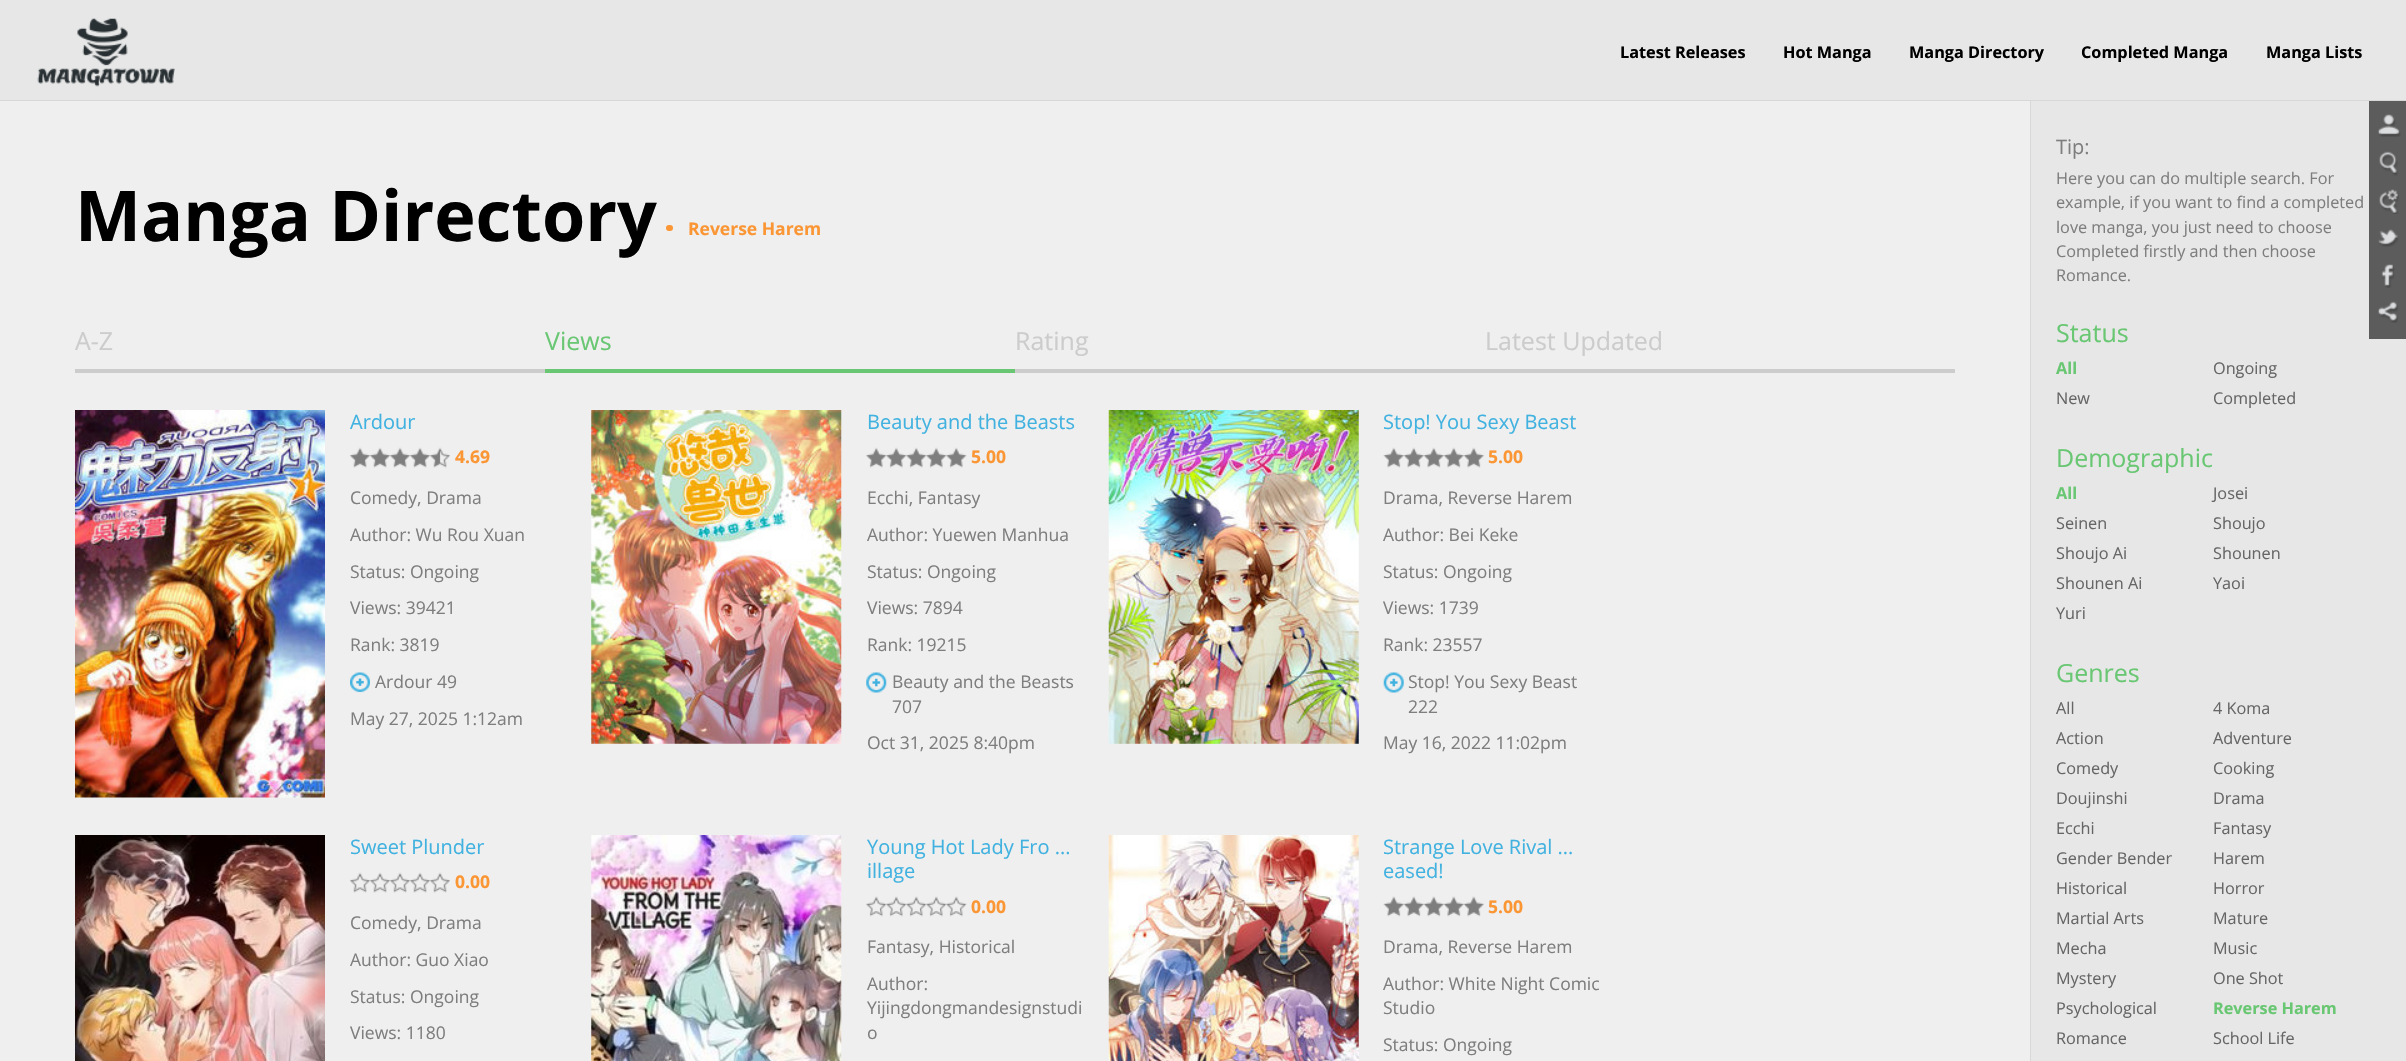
void draw(SkCanvas* canvas) {
  SkPaint paint;
  paint.setAntiAlias(true);
  auto face = [&](const char* family, int weight, float size, bool italic = false) {
    SkFontStyle style(weight, SkFontStyle::kNormal_Width,
      italic ? SkFontStyle::kItalic_Slant : SkFontStyle::kUpright_Slant);
    SkFont result(fontMgr->matchFamilyStyle(family, style), size);
    result.setSubpixel(true);
    return result;
  };
  auto paste = [&](const char* path, float x, float y, float w, float h) {
    auto image = SkImages::DeferredFromEncodedData(SkData::MakeFromFileName(path));
    canvas->drawImageRect(image, SkRect::MakeXYWH(x, y, w, h), SkSamplingOptions());
  };
  canvas->clear(0xffe7e7e7);
  paint.setColor(0xffd7d7d7);
  canvas->drawRect(SkRect::MakeXYWH(0, 100, 2406, 1), paint);
  paste("img/1.png", 37, 18, 138, 69);
  paint.setColor(0xffefefef);
  canvas->drawRect(SkRect::MakeXYWH(0, 101, 2030, 960), paint);
  paint.setColor(0xffd8d8d8);
  canvas->drawRect(SkRect::MakeXYWH(2030, 101, 1, 960), paint);
  paint.setColor(0xfffb9635);
  canvas->drawRoundRect(SkRect::MakeXYWH(666, 225, 7, 6), 3, 3, paint);
  {
    const struct { float x, y, w, h; SkColor color; } items[] = {
      {75, 369, 470, 4, 0xffcccccc},
      {545, 369, 470, 4, 0xff69c773},
      {1015, 369, 940, 4, 0xffcccccc},
    };
    for (auto [x, y, w, h, color] : items) {
      paint.setColor(color);
      canvas->drawRect(SkRect::MakeXYWH(x, y, w, h), paint);
    }
  }
  paste("img/2.png", 75, 410, 250, 388);
  paste("img/3.png", 350, 447, 20, 21);
  paste("img/3.png", 370, 447, 20, 21);
  paste("img/3.png", 390, 447, 20, 21);
  paste("img/3.png", 410, 447, 20, 21);
  paste("img/4.png", 430, 447, 20, 21);
  paste("img/5.png", 350, 672, 20, 21);
  paste("img/6.png", 591, 410, 251, 334);
  paste("img/7.png", 866, 447, 21, 21);
  paste("img/8.png", 886, 447, 21, 21);
  paste("img/8.png", 906, 447, 21, 21);
  paste("img/8.png", 926, 447, 21, 21);
  paste("img/8.png", 946, 447, 21, 21);
  paste("img/9.png", 866, 672, 21, 21);
  paste("img/10.png", 1108, 410, 251, 334);
  paste("img/11.png", 1383, 447, 21, 21);
  paste("img/12.png", 1403, 447, 21, 21);
  paste("img/12.png", 1423, 447, 21, 21);
  paste("img/13.png", 1443, 447, 21, 21);
  paste("img/13.png", 1463, 447, 21, 21);
  paste("img/14.png", 1383, 672, 21, 21);
  paste("img/15.png", 75, 835, 250, 226);
  paste("img/16.png", 350, 872, 20, 21);
  paste("img/16.png", 370, 872, 20, 21);
  paste("img/16.png", 390, 872, 20, 21);
  paste("img/16.png", 410, 872, 20, 21);
  paste("img/17.png", 430, 872, 20, 21);
  paste("img/18.png", 591, 835, 251, 226);
  paste("img/19.png", 866, 896, 21, 21);
  paste("img/20.png", 886, 896, 21, 21);
  paste("img/20.png", 906, 896, 21, 21);
  paste("img/20.png", 926, 896, 21, 21);
  paste("img/20.png", 946, 896, 21, 21);
  paste("img/21.png", 1108, 835, 251, 226);
  paste("img/22.png", 1383, 896, 21, 21);
  paste("img/23.png", 1403, 896, 21, 21);
  paste("img/23.png", 1423, 896, 21, 21);
  paste("img/24.png", 1443, 896, 21, 21);
  paste("img/24.png", 1463, 896, 21, 21);
  paint.setColor(0xff5c5c5c);
  canvas->drawRect(SkRect::MakeXYWH(2369, 101, 37, 238), paint);
  paste("img/25.png", 2378, 114, 23, 23);
  paste("img/26.png", 2379, 151, 19, 25);
  paste("img/27.png", 2379, 189, 20, 25);
  paste("img/28.png", 2378, 229, 21, 18);
  paste("img/29.png", 2381, 264, 14, 24);
  paste("img/30.png", 2378, 301, 20, 22);
  auto f0 = face("Open Sans", 700, 16.25f);
  paint.setColor(0xff000000);
  {
    const struct { const char* s; float x, y; } items[] = {
      {"Latest Releases", 1620, 58},
      {"Hot Manga", 1783, 58},
      {"Manga Directory", 1909, 58},
      {"Completed Manga", 2081, 58},
      {"Manga Lists", 2266, 58},
    };
    for (auto [s, x, y] : items) {
      canvas->drawString(s, x, y, f0, paint);
    }
  }
  auto f1 = face("Open Sans", 700, 70);
  canvas->drawString("Manga Directory", 75, 241, f1, paint);
  auto f2 = face("Open Sans", 700, 17.5f);
  paint.setColor(0xfffb9635);
  canvas->drawString("Reverse Harem", 688, 235, f2, paint);
  auto f3 = face("Open Sans", 400, 25);
  paint.setColor(0xffcccccc);
  canvas->drawString("A-Z", 75, 350, f3, paint);
  paint.setColor(0xff69c773);
  canvas->drawString("Views", 545, 350, f3, paint);
  paint.setColor(0xffcccccc);
  canvas->drawString("Rating", 1015, 350, f3, paint);
  canvas->drawString("Latest Updated", 1485, 350, f3, paint);
  auto f4 = face("Open Sans", 400, 20);
  paint.setColor(0xff41b2e0);
  canvas->drawString("Ardour", 350, 429, f4, paint);
  paint.setColor(0xfffb9635);
  canvas->drawString("4.69", 455, 463, f2, paint);
  auto f5 = face("Open Sans", 400, 17.5f);
  paint.setColor(0xff7e7e7e);
  {
    const struct { const char* s; float x, y; } items[] = {
      {"Comedy, Drama", 350, 504},
      {"Author: Wu Rou Xuan", 350, 541},
      {"Status: Ongoing", 350, 578},
      {"Views: 39421", 350, 614},
      {"Rank: 3819", 350, 651},
      {"Ardour 49", 375, 688},
      {"May 27, 2025 1:12am", 350, 725},
    };
    for (auto [s, x, y] : items) {
      canvas->drawString(s, x, y, f5, paint);
    }
  }
  paint.setColor(0xff41b2e0);
  canvas->drawString("Beauty and the Beasts", 867, 429, f4, paint);
  paint.setColor(0xfffb9635);
  canvas->drawString("5.00", 971, 463, f2, paint);
  paint.setColor(0xff7e7e7e);
  {
    const struct { const char* s; float x, y; } items[] = {
      {"Ecchi, Fantasy", 867, 504},
      {"Author: Yuewen Manhua", 867, 541},
      {"Status: Ongoing", 867, 578},
      {"Views: 7894", 867, 614},
      {"Rank: 19215", 867, 651},
      {"Beauty and the Beasts", 892, 688},
      {"707", 892, 713},
      {"Oct 31, 2025 8:40pm", 867, 749},
    };
    for (auto [s, x, y] : items) {
      canvas->drawString(s, x, y, f5, paint);
    }
  }
  paint.setColor(0xff41b2e0);
  canvas->drawString("Stop! You Sexy Beast", 1383, 429, f4, paint);
  paint.setColor(0xfffb9635);
  canvas->drawString("5.00", 1488, 463, f2, paint);
  paint.setColor(0xff7e7e7e);
  {
    const struct { const char* s; float x, y; } items[] = {
      {"Drama, Reverse Harem", 1383, 504},
      {"Author: Bei Keke", 1383, 541},
      {"Status: Ongoing", 1383, 578},
      {"Views: 1739", 1383, 614},
      {"Rank: 23557", 1383, 651},
      {"Stop! You Sexy Beast", 1408, 688},
      {"222", 1408, 713},
      {"May 16, 2022 11:02pm", 1383, 749},
    };
    for (auto [s, x, y] : items) {
      canvas->drawString(s, x, y, f5, paint);
    }
  }
  paint.setColor(0xff41b2e0);
  canvas->drawString("Sweet Plunder", 350, 854, f4, paint);
  paint.setColor(0xfffb9635);
  canvas->drawString("0.00", 455, 888, f2, paint);
  paint.setColor(0xff7e7e7e);
  {
    const struct { const char* s; float x, y; } items[] = {
      {"Comedy, Drama", 350, 929},
      {"Author: Guo Xiao", 350, 966},
      {"Status: Ongoing", 350, 1003},
      {"Views: 1180", 350, 1039},
    };
    for (auto [s, x, y] : items) {
      canvas->drawString(s, x, y, f5, paint);
    }
  }
  paint.setColor(0xff41b2e0);
  canvas->drawString("Young Hot Lady Fro ...", 867, 854, f4, paint);
  canvas->drawString("illage", 867, 878, f4, paint);
  paint.setColor(0xfffb9635);
  canvas->drawString("0.00", 971, 913, f2, paint);
  paint.setColor(0xff7e7e7e);
  {
    const struct { const char* s; float x, y; } items[] = {
      {"Fantasy, Historical", 867, 953},
      {"Author:", 867, 990},
      {"Yijingdongmandesignstudi", 867, 1014},
      {"o", 867, 1039},
    };
    for (auto [s, x, y] : items) {
      canvas->drawString(s, x, y, f5, paint);
    }
  }
  paint.setColor(0xff41b2e0);
  canvas->drawString("Strange Love Rival ...", 1383, 854, f4, paint);
  canvas->drawString("eased!", 1383, 878, f4, paint);
  paint.setColor(0xfffb9635);
  canvas->drawString("5.00", 1488, 913, f2, paint);
  paint.setColor(0xff7e7e7e);
  {
    const struct { const char* s; float x, y; } items[] = {
      {"Drama, Reverse Harem", 1383, 953},
      {"Author: White Night Comic", 1383, 990},
      {"Studio", 1383, 1014},
      {"Status: Ongoing", 1383, 1051},
    };
    for (auto [s, x, y] : items) {
      canvas->drawString(s, x, y, f5, paint);
    }
  }
  canvas->drawString("Tip:", 2056, 154, f4, paint);
  auto f6 = face("Open Sans", 400, 16.25f);
  {
    const struct { const char* s; float x, y; } items[] = {
      {"Here you can do multiple search. For", 2056, 184},
      {"example, if you want to find a completed", 2056, 208},
      {"love manga, you just need to choose", 2056, 233},
      {"Completed firstly and then choose", 2056, 257},
      {"Romance.", 2056, 281},
    };
    for (auto [s, x, y] : items) {
      canvas->drawString(s, x, y, f6, paint);
    }
  }
  paint.setColor(0xff69c773);
  canvas->drawString("Status", 2056, 342, f3, paint);
  canvas->drawString("All", 2056, 374, f0, paint);
  paint.setColor(0xff666666);
  {
    const struct { const char* s; float x, y; } items[] = {
      {"Ongoing", 2213, 374},
      {"New", 2056, 404},
      {"Completed", 2213, 404},
    };
    for (auto [s, x, y] : items) {
      canvas->drawString(s, x, y, f6, paint);
    }
  }
  paint.setColor(0xff69c773);
  canvas->drawString("Demographic", 2056, 467, f3, paint);
  canvas->drawString("All", 2056, 499, f0, paint);
  paint.setColor(0xff666666);
  {
    const struct { const char* s; float x, y; } items[] = {
      {"Josei", 2213, 499},
      {"Seinen", 2056, 529},
      {"Shoujo", 2213, 529},
      {"Shoujo Ai", 2056, 559},
      {"Shounen", 2213, 559},
      {"Shounen Ai", 2056, 589},
      {"Yaoi", 2213, 589},
      {"Yuri", 2056, 619},
    };
    for (auto [s, x, y] : items) {
      canvas->drawString(s, x, y, f6, paint);
    }
  }
  paint.setColor(0xff69c773);
  canvas->drawString("Genres", 2056, 682, f3, paint);
  paint.setColor(0xff666666);
  {
    const struct { const char* s; float x, y; } items[] = {
      {"All", 2056, 714},
      {"4 Koma", 2213, 714},
      {"Action", 2056, 744},
      {"Adventure", 2213, 744},
      {"Comedy", 2056, 774},
      {"Cooking", 2213, 774},
      {"Doujinshi", 2056, 804},
      {"Drama", 2213, 804},
      {"Ecchi", 2056, 834},
      {"Fantasy", 2213, 834},
      {"Gender Bender", 2056, 864},
      {"Harem", 2213, 864},
      {"Historical", 2056, 894},
      {"Horror", 2213, 894},
      {"Martial Arts", 2056, 924},
      {"Mature", 2213, 924},
      {"Mecha", 2056, 954},
      {"Music", 2213, 954},
      {"Mystery", 2056, 984},
      {"One Shot", 2213, 984},
      {"Psychological", 2056, 1014},
    };
    for (auto [s, x, y] : items) {
      canvas->drawString(s, x, y, f6, paint);
    }
  }
  paint.setColor(0xff69c773);
  canvas->drawString("Reverse Harem", 2213, 1014, f0, paint);
  paint.setColor(0xff666666);
  canvas->drawString("Romance", 2056, 1044, f6, paint);
  canvas->drawString("School Life", 2213, 1044, f6, paint);
}
